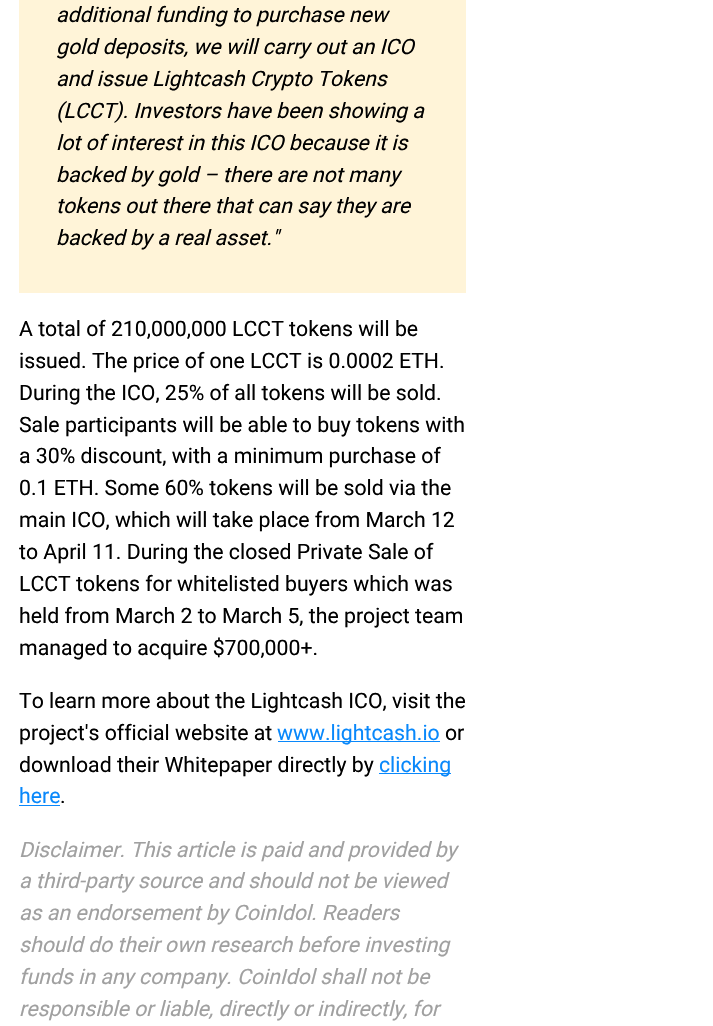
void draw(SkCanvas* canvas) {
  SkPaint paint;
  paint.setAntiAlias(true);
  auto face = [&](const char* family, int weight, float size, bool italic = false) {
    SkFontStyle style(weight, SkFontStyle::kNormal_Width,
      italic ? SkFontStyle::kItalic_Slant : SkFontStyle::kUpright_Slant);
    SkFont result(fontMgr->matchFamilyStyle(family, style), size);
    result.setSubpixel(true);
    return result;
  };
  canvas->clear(0xffffffff);
  {
    const struct { float x, y, w, h; SkColor color; } items[] = {
      {19, 0, 447, 293, 0xfffff4d8},
      {278, 741, 162, 1, 0xff0988fb},
      {379, 773, 72, 1, 0xff0988fb},
      {19, 805, 41, 1, 0xff0988fb},
    };
    for (auto [x, y, w, h, color] : items) {
      paint.setColor(color);
      canvas->drawRect(SkRect::MakeXYWH(x, y, w, h), paint);
    }
  }
  auto f0 = face("Roboto", 400, 21.25f, true);
  paint.setColor(0xff000000);
  {
    const struct { const char* s; float x, y; } items[] = {
      {"additional funding to purchase new", 56, 22},
      {"gold deposits, we will carry out an ICO", 56, 54},
      {"and issue Lightcash Crypto Tokens", 56, 86},
      {"(LCCT). Investors have been showing a", 56, 118},
      {"lot of interest in this ICO because it is", 56, 150},
      {"backed by gold – there are not many", 56, 182},
      {"tokens out there that can say they are", 56, 213},
      {"backed by a real asset.\"", 56, 245},
    };
    for (auto [s, x, y] : items) {
      canvas->drawString(s, x, y, f0, paint);
    }
  }
  auto f1 = face("Roboto", 400, 21.25f);
  {
    const struct { const char* s; float x, y; } items[] = {
      {"A total of 210,000,000 LCCT tokens will be", 19, 336},
      {"issued. The price of one LCCT is 0.0002 ETH.", 19, 368},
      {"During the ICO, 25% of all tokens will be sold.", 19, 400},
      {"Sale participants will be able to buy tokens with", 19, 432},
      {"a 30% discount, with a minimum purchase of", 19, 463},
      {"0.1 ETH. Some 60% tokens will be sold via the", 19, 495},
      {"main ICO, which will take place from March 12", 19, 527},
      {"to April 11. During the closed Private Sale of", 19, 559},
      {"LCCT tokens for whitelisted buyers which was", 19, 591},
      {"held from March 2 to March 5, the project team", 19, 623},
      {"managed to acquire $700,000+.", 19, 655},
      {"To learn more about the Lightcash ICO, visit the", 19, 708},
      {"project's official website at", 19, 740},
    };
    for (auto [s, x, y] : items) {
      canvas->drawString(s, x, y, f1, paint);
    }
  }
  paint.setColor(0xff0988fb);
  canvas->drawString("www.lightcash.io", 277, 740, f1, paint);
  paint.setColor(0xff000000);
  canvas->drawString("or", 445, 740, f1, paint);
  canvas->drawString("download their Whitepaper directly by", 19, 772, f1, paint);
  paint.setColor(0xff0988fb);
  canvas->drawString("clicking", 379, 772, f1, paint);
  canvas->drawString("here", 19, 803, f1, paint);
  paint.setColor(0xff000000);
  canvas->drawString(".", 60, 803, f1, paint);
  paint.setColor(0xffa0a0a0);
  {
    const struct { const char* s; float x, y; } items[] = {
      {"Disclaimer. This article is paid and provided by", 19, 857},
      {"a third-party source and should not be viewed", 19, 888},
      {"as an endorsement by CoinIdol. Readers", 19, 920},
      {"should do their own research before investing", 19, 952},
      {"funds in any company. CoinIdol shall not be", 19, 984},
      {"responsible or liable, directly or indirectly, for", 19, 1016},
    };
    for (auto [s, x, y] : items) {
      canvas->drawString(s, x, y, f0, paint);
    }
  }
}
